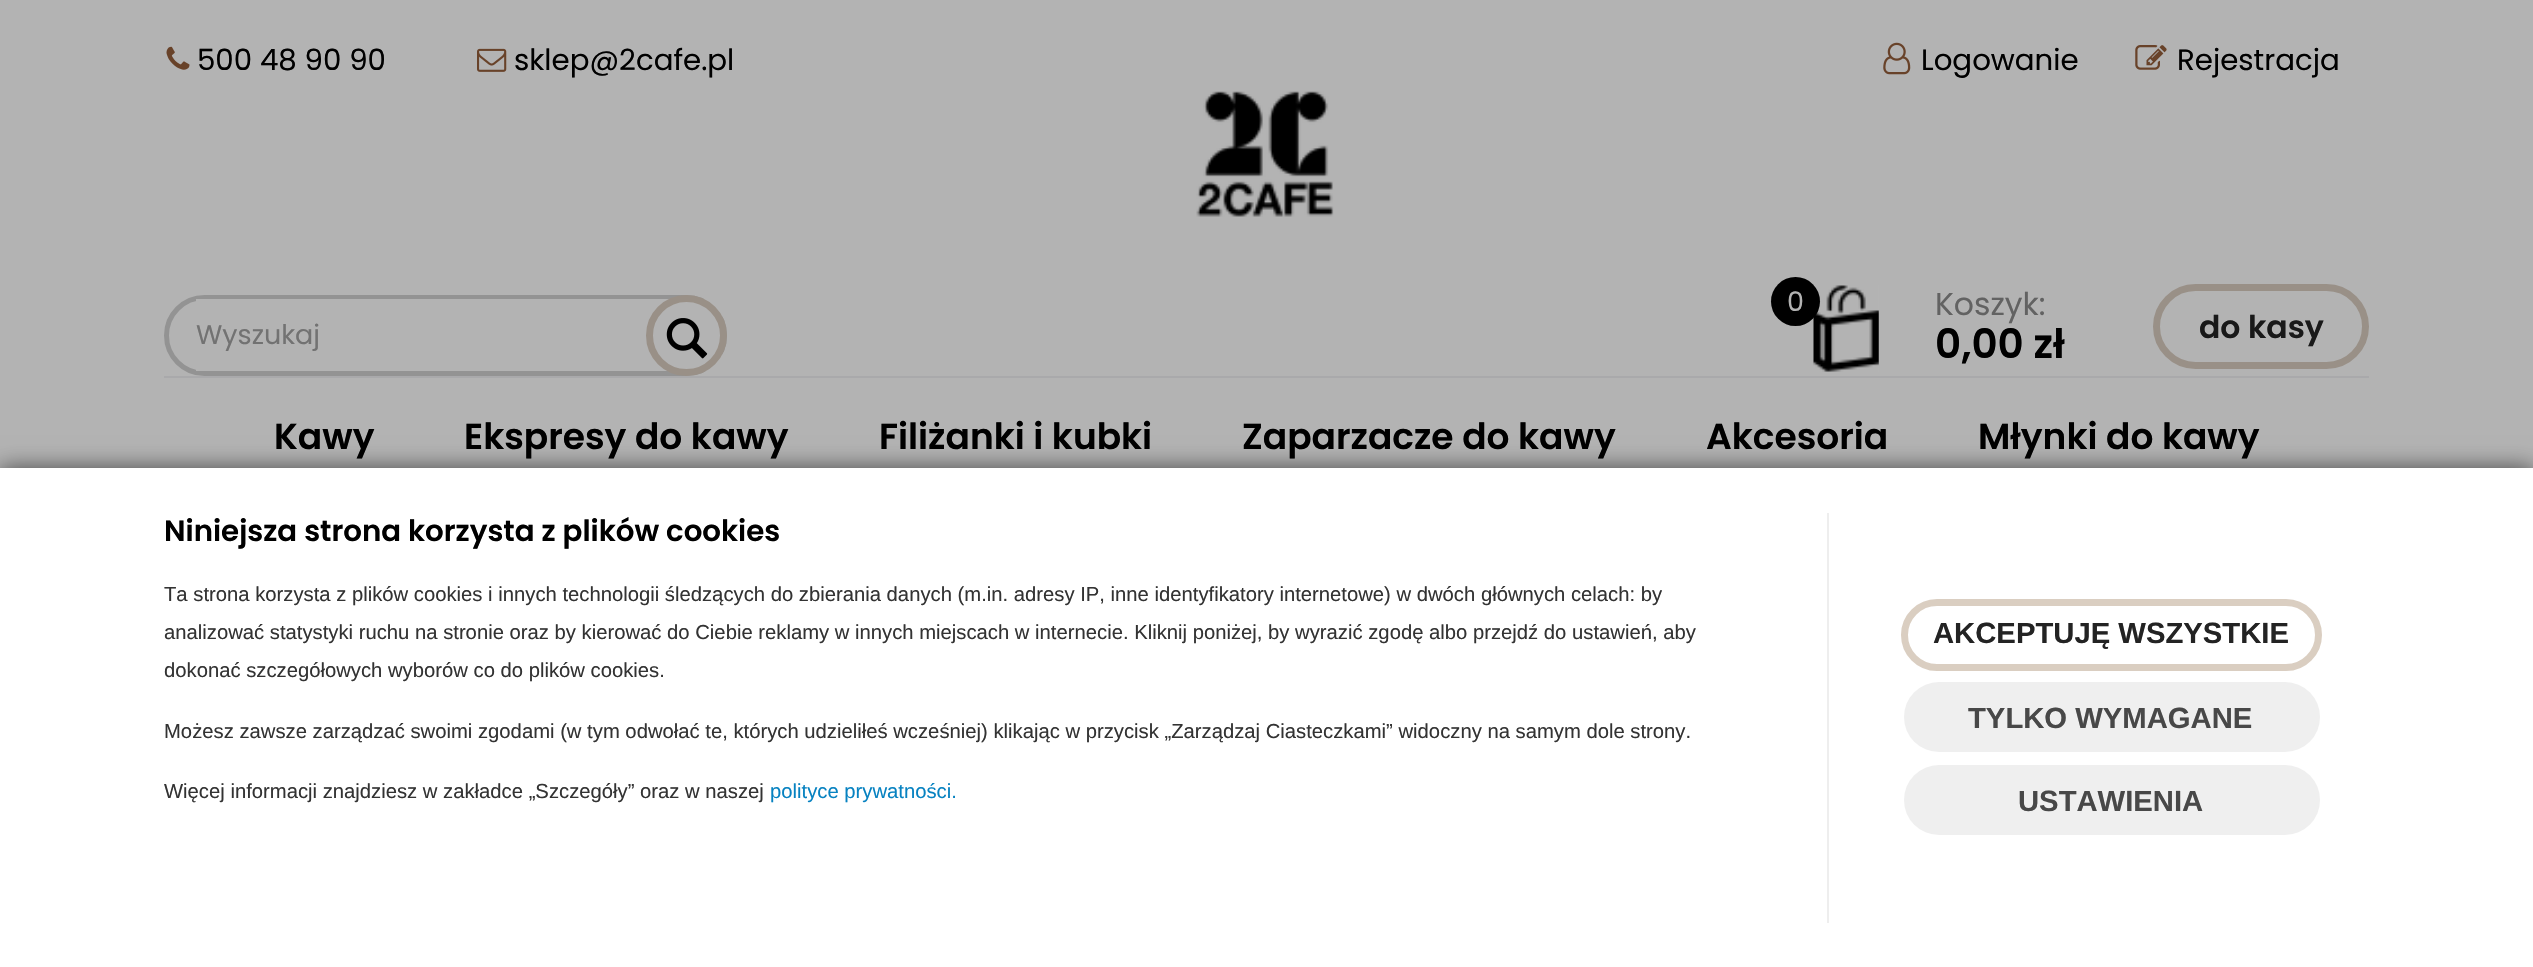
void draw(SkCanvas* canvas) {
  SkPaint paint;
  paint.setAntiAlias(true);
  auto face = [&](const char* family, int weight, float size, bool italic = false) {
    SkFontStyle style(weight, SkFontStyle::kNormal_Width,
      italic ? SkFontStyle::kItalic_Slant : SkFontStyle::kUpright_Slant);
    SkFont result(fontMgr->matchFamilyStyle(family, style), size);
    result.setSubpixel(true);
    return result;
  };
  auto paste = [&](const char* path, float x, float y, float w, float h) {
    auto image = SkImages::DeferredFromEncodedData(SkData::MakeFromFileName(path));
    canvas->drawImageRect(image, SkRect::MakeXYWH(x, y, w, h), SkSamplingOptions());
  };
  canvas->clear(0xffb3b3b3);
  paste("img/1.png", 166, 46, 24, 24);
  paste("img/2.png", 477, 48, 30, 24);
  paste("img/3.png", 1883, 42, 28, 33);
  paste("img/4.png", 2135, 45, 32, 25);
  paste("img/5.png", 1196, 91, 138, 126);
  paint.setStroke(true);
  paint.setStrokeWidth(5);
  paint.setColor(0xff939393);
  canvas->drawRoundRect(SkRect::MakeXYWH(166.5f, 297.5f, 558, 76), 38, 38, paint);
  paint.setStroke(false);
  paint.setColor(0xffb3b3b3);
  canvas->drawRect(SkRect::MakeXYWH(196, 299, 526, 72), paint);
  paint.setStroke(true);
  paint.setStrokeWidth(7);
  paint.setColor(0xff999087);
  canvas->drawCircle(686.5f, 335.5f, 37, paint);
  paste("img/6.png", 666, 318, 42, 41);
  paste("img/7.png", 1813, 285, 66, 87);
  paint.setStroke(false);
  paint.setColor(0xff000000);
  canvas->drawCircle(1795.5f, 301.5f, 24.5f, paint);
  paint.setStroke(true);
  paint.setColor(0xff999087);
  canvas->drawRoundRect(SkRect::MakeXYWH(2156.5f, 287.5f, 209, 78), 39, 39, paint);
  paint.setStroke(false);
  paint.setColor(0xffa9a9ab);
  canvas->drawRect(SkRect::MakeXYWH(164, 376, 2205, 2), paint);
  paint.setColor(0x99000000);
  paint.setMaskFilter(SkMaskFilter::MakeBlur(kNormal_SkBlurStyle, 11));
  canvas->drawRect(SkRect::MakeXYWH(0, 468, 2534, 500), paint);
  paint.setMaskFilter(nullptr);
  paint.setColor(0xffffffff);
  canvas->drawRect(SkRect::MakeXYWH(0, 468, 2533, 499), paint);
  paint.setColor(0xffeeeeee);
  canvas->drawRect(SkRect::MakeXYWH(1827, 513, 2, 410), paint);
  paint.setStroke(true);
  paint.setColor(0xffdacec1);
  canvas->drawRoundRect(SkRect::MakeXYWH(1904.5f, 602.5f, 414, 65), 32.5f, 32.5f, paint);
  paint.setStroke(false);
  paint.setColor(0xffefefef);
  canvas->drawRoundRect(SkRect::MakeXYWH(1904, 682, 416, 70), 35, 35, paint);
  canvas->drawRoundRect(SkRect::MakeXYWH(1904, 765, 416, 70), 35, 35, paint);
  auto f0 = face("Poppins", 400, 29.25f);
  paint.setColor(0xff000000);
  {
    const struct { const char* s; float x, y; } items[] = {
      {"500 48 90 90", 197, 70},
      {"sklep@2cafe.pl", 514, 70},
      {"Logowanie", 1921, 70},
      {"Rejestracja", 2177, 70},
    };
    for (auto [s, x, y] : items) {
      canvas->drawString(s, x, y, f0, paint);
    }
  }
  auto f1 = face("Poppins", 400, 27);
  paint.setColor(0xff727272);
  canvas->drawString("Wyszukaj", 196, 344, f1, paint);
  paint.setColor(0xffb3b3b3);
  canvas->drawString("0", 1787, 311, f1, paint);
  auto f2 = face("Poppins", 400, 31.5f);
  paint.setColor(0xff626262);
  canvas->drawString("Koszyk:", 1935, 315, f2, paint);
  auto f3 = face("Poppins", 600, 40.5f);
  paint.setColor(0xff000000);
  canvas->drawString("0,00 zł", 1935, 358, f3, paint);
  auto f4 = face("Poppins", 600, 31.5f);
  paint.setColor(0xff191919);
  canvas->drawString("do kasy", 2199, 338, f4, paint);
  auto f5 = face("Poppins", 600, 36);
  paint.setColor(0xff000000);
  {
    const struct { const char* s; float x, y; } items[] = {
      {"Kawy", 274, 449},
      {"Ekspresy do kawy", 464, 449},
      {"Filiżanki i kubki", 879, 449},
      {"Zaparzacze do kawy", 1242, 449},
      {"Akcesoria", 1706, 449},
      {"Młynki do kawy", 1978, 449},
    };
    for (auto [s, x, y] : items) {
      canvas->drawString(s, x, y, f5, paint);
    }
  }
  auto f6 = face("Poppins", 600, 29.25f);
  canvas->drawString("Niniejsza strona korzysta z plików cookies", 164, 541, f6, paint);
  auto f7 = face("Liberation Sans", 400, 20.25f);
  paint.setColor(0xff333333);
  {
    const struct { const char* s; float x, y; } items[] = {
      {"Ta strona korzysta z plików cookies i innych technologii śledzących do zbierania danych (m.in. adresy IP, inne identyfikatory internetowe) w dwóch głównych celach: by", 164, 601},
      {"analizować statystyki ruchu na stronie oraz by kierować do Ciebie reklamy w innych miejscach w internecie. Kliknij poniżej, by wyrazić zgodę albo przejdź do ustawień, aby", 164, 639},
      {"dokonać szczegółowych wyborów co do plików cookies.", 164, 677},
      {"Możesz zawsze zarządzać swoimi zgodami (w tym odwołać te, których udzieliłeś wcześniej) klikając w przycisk „Zarządzaj Ciasteczkami” widoczny na samym dole strony.", 164, 738},
      {"Więcej informacji znajdziesz w zakładce „Szczegóły” oraz w naszej", 164, 798},
    };
    for (auto [s, x, y] : items) {
      canvas->drawString(s, x, y, f7, paint);
    }
  }
  paint.setColor(0xff0782c1);
  canvas->drawString("polityce prywatności.", 770, 798, f7, paint);
  auto f8 = face("Liberation Sans", 700, 29.25f);
  paint.setColor(0xff232323);
  canvas->drawString("AKCEPTUJĘ WSZYSTKIE", 1933, 643, f8, paint);
  paint.setColor(0xff484848);
  canvas->drawString("TYLKO WYMAGANE", 1968, 728, f8, paint);
  canvas->drawString("USTAWIENIA", 2018, 811, f8, paint);
}
